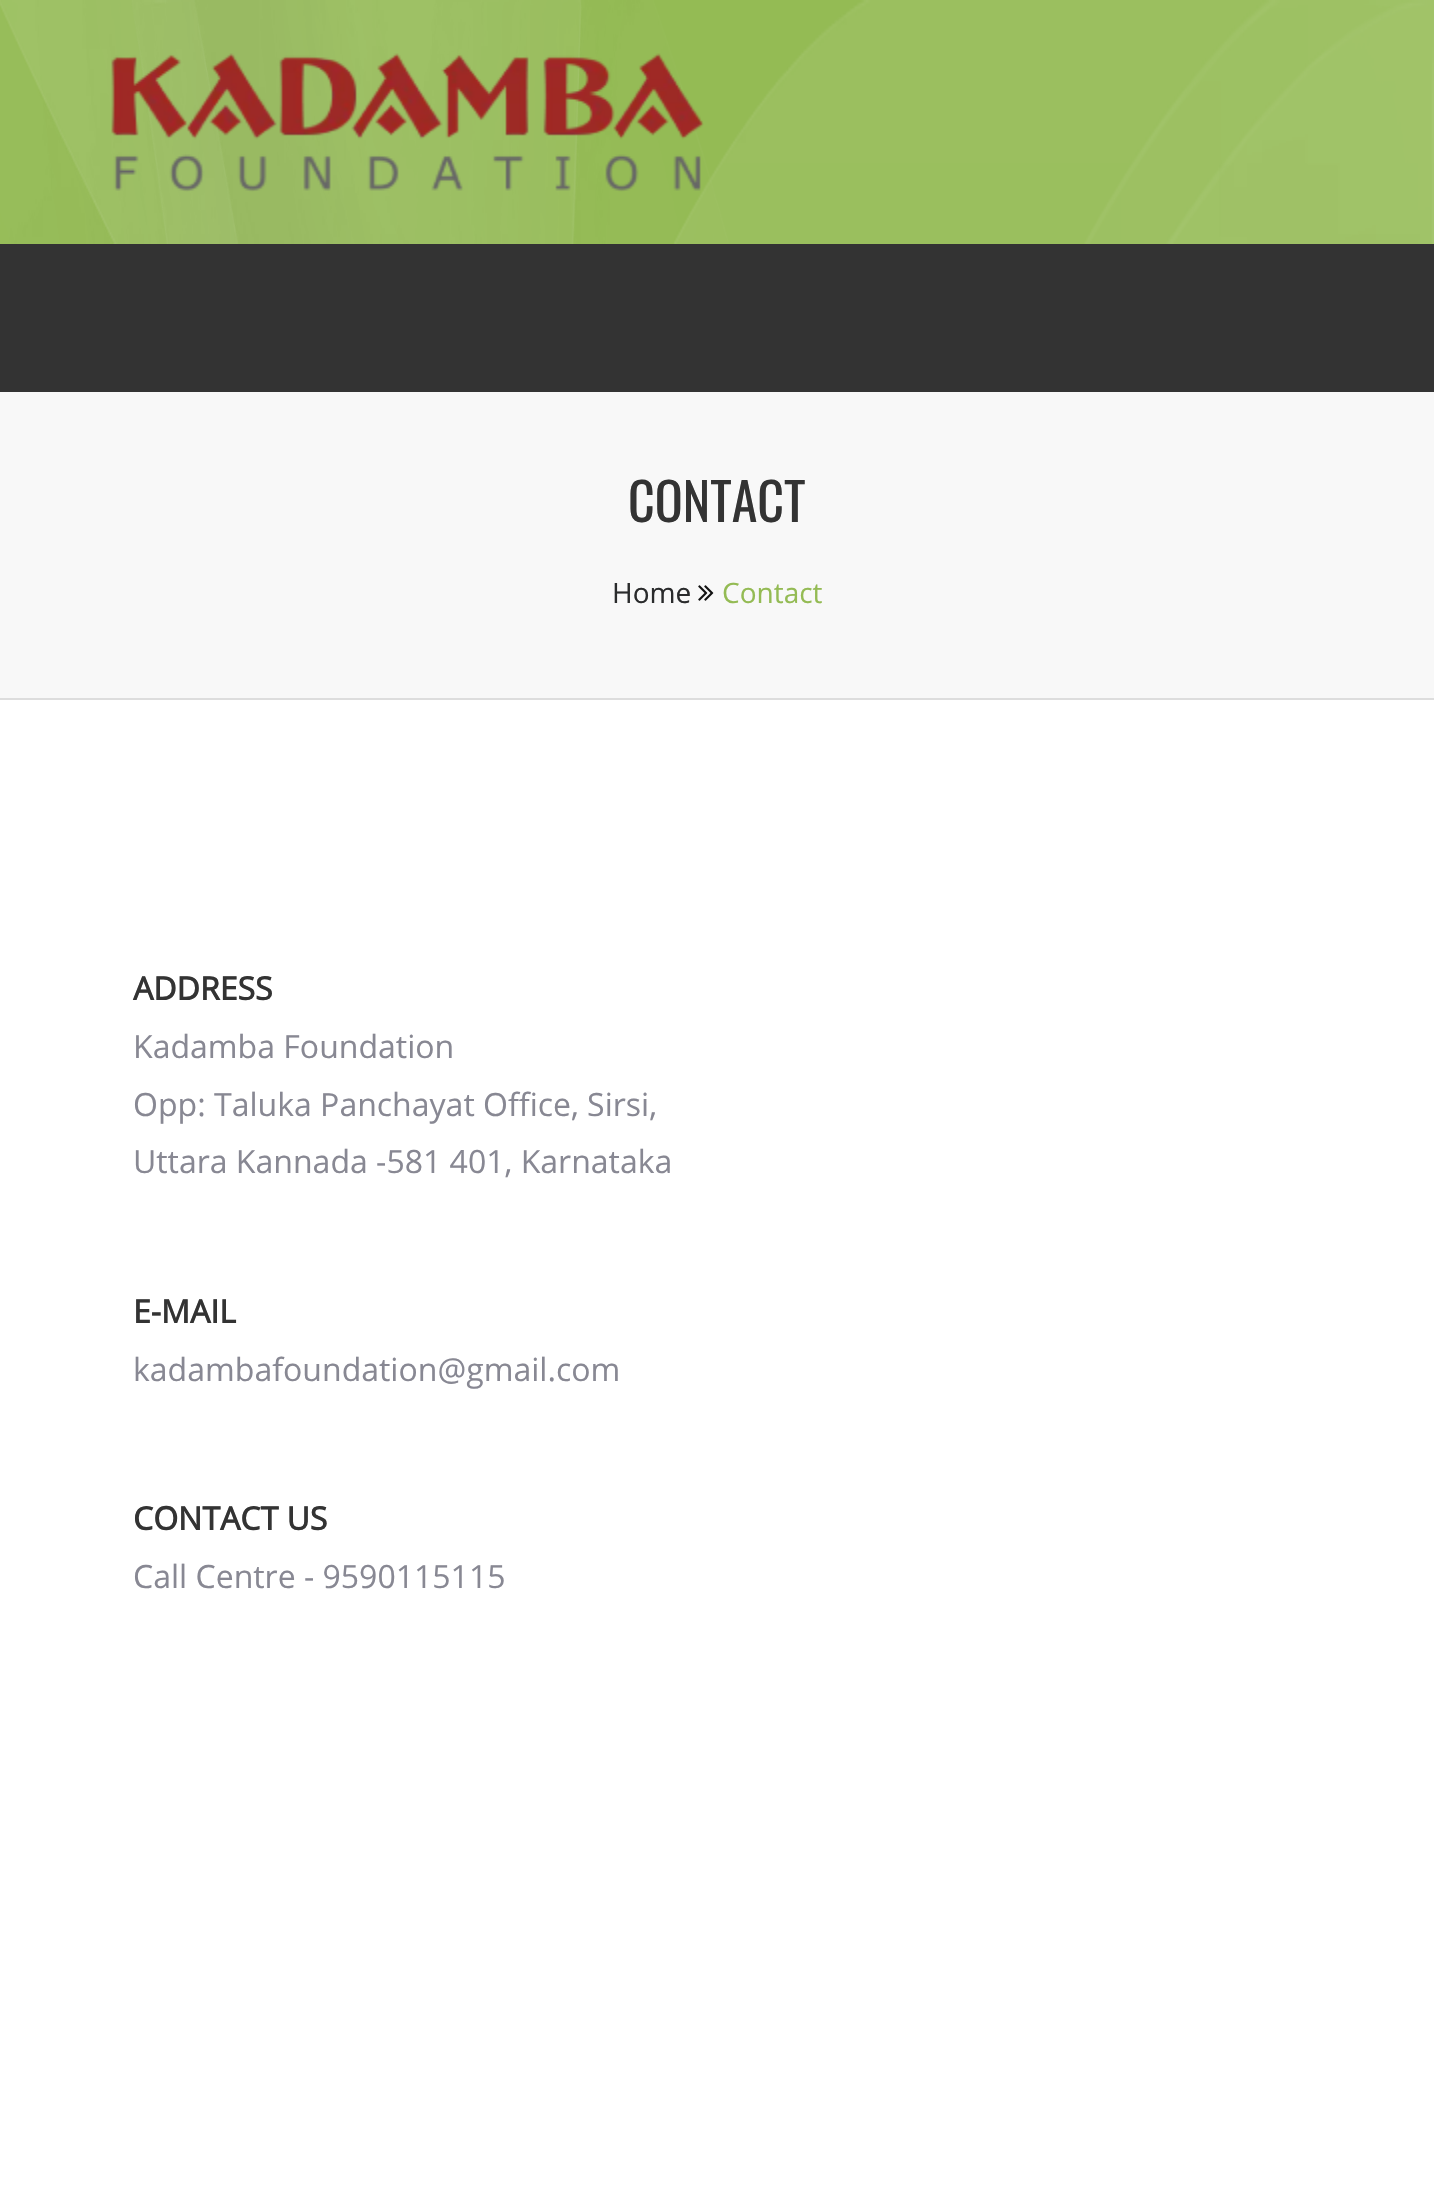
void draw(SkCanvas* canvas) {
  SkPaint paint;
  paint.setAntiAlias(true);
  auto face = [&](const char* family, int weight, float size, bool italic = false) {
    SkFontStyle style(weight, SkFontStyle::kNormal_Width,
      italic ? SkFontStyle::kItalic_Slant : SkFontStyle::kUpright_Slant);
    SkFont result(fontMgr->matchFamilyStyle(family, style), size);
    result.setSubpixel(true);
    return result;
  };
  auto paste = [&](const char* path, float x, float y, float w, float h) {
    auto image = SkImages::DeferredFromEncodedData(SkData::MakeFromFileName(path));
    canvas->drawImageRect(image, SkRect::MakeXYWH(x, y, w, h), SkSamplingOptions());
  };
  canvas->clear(0xffffffff);
  paint.setColor(0xff94bb54);
  canvas->drawRect(SkRect::MakeXYWH(0, 0, 1434, 244), paint);
  paste("img/1.png", 0, 0, 1434, 244);
  paste("img/2.png", 111, 53, 593, 139);
  {
    const struct { float x, y, w, h; SkColor color; } items[] = {
      {0, 244, 1434, 148, 0xff333333},
      {0, 392, 1434, 306, 0xfff8f8f8},
      {0, 698, 1434, 2, 0xffdddddd},
    };
    for (auto [x, y, w, h, color] : items) {
      paint.setColor(color);
      canvas->drawRect(SkRect::MakeXYWH(x, y, w, h), paint);
    }
  }
  paste("img/3.png", 698, 585, 16, 16);
  auto f0 = face("Oswald", 400, 52);
  paint.setColor(0xff333333);
  canvas->drawString("CONTACT", 628, 522, f0, paint);
  auto f1 = face("Open Sans", 400, 28);
  paint.setColor(0xff2a2b2c);
  canvas->drawString("Home", 612, 603, f1, paint);
  paint.setColor(0xff94bb54);
  canvas->drawString("Contact", 722, 603, f1, paint);
  auto f2 = face("Open Sans", 700, 32);
  paint.setColor(0xff333333);
  canvas->drawString("ADDRESS", 133, 1000, f2, paint);
  auto f3 = face("Open Sans", 400, 32);
  paint.setColor(0xff888893);
  {
    const struct { const char* s; float x, y; } items[] = {
      {"Kadamba Foundation", 133, 1058},
      {"Opp: Taluka Panchayat Office, Sirsi,", 133, 1116},
      {"Uttara Kannada -581 401, Karnataka", 133, 1173},
    };
    for (auto [s, x, y] : items) {
      canvas->drawString(s, x, y, f3, paint);
    }
  }
  paint.setColor(0xff333333);
  canvas->drawString("E-MAIL", 133, 1323, f2, paint);
  paint.setColor(0xff888893);
  canvas->drawString("kadambafoundation@gmail.com", 133, 1381, f3, paint);
  paint.setColor(0xff333333);
  canvas->drawString("CONTACT US", 133, 1530, f2, paint);
  paint.setColor(0xff888893);
  canvas->drawString("Call Centre - 9590115115", 133, 1588, f3, paint);
}
